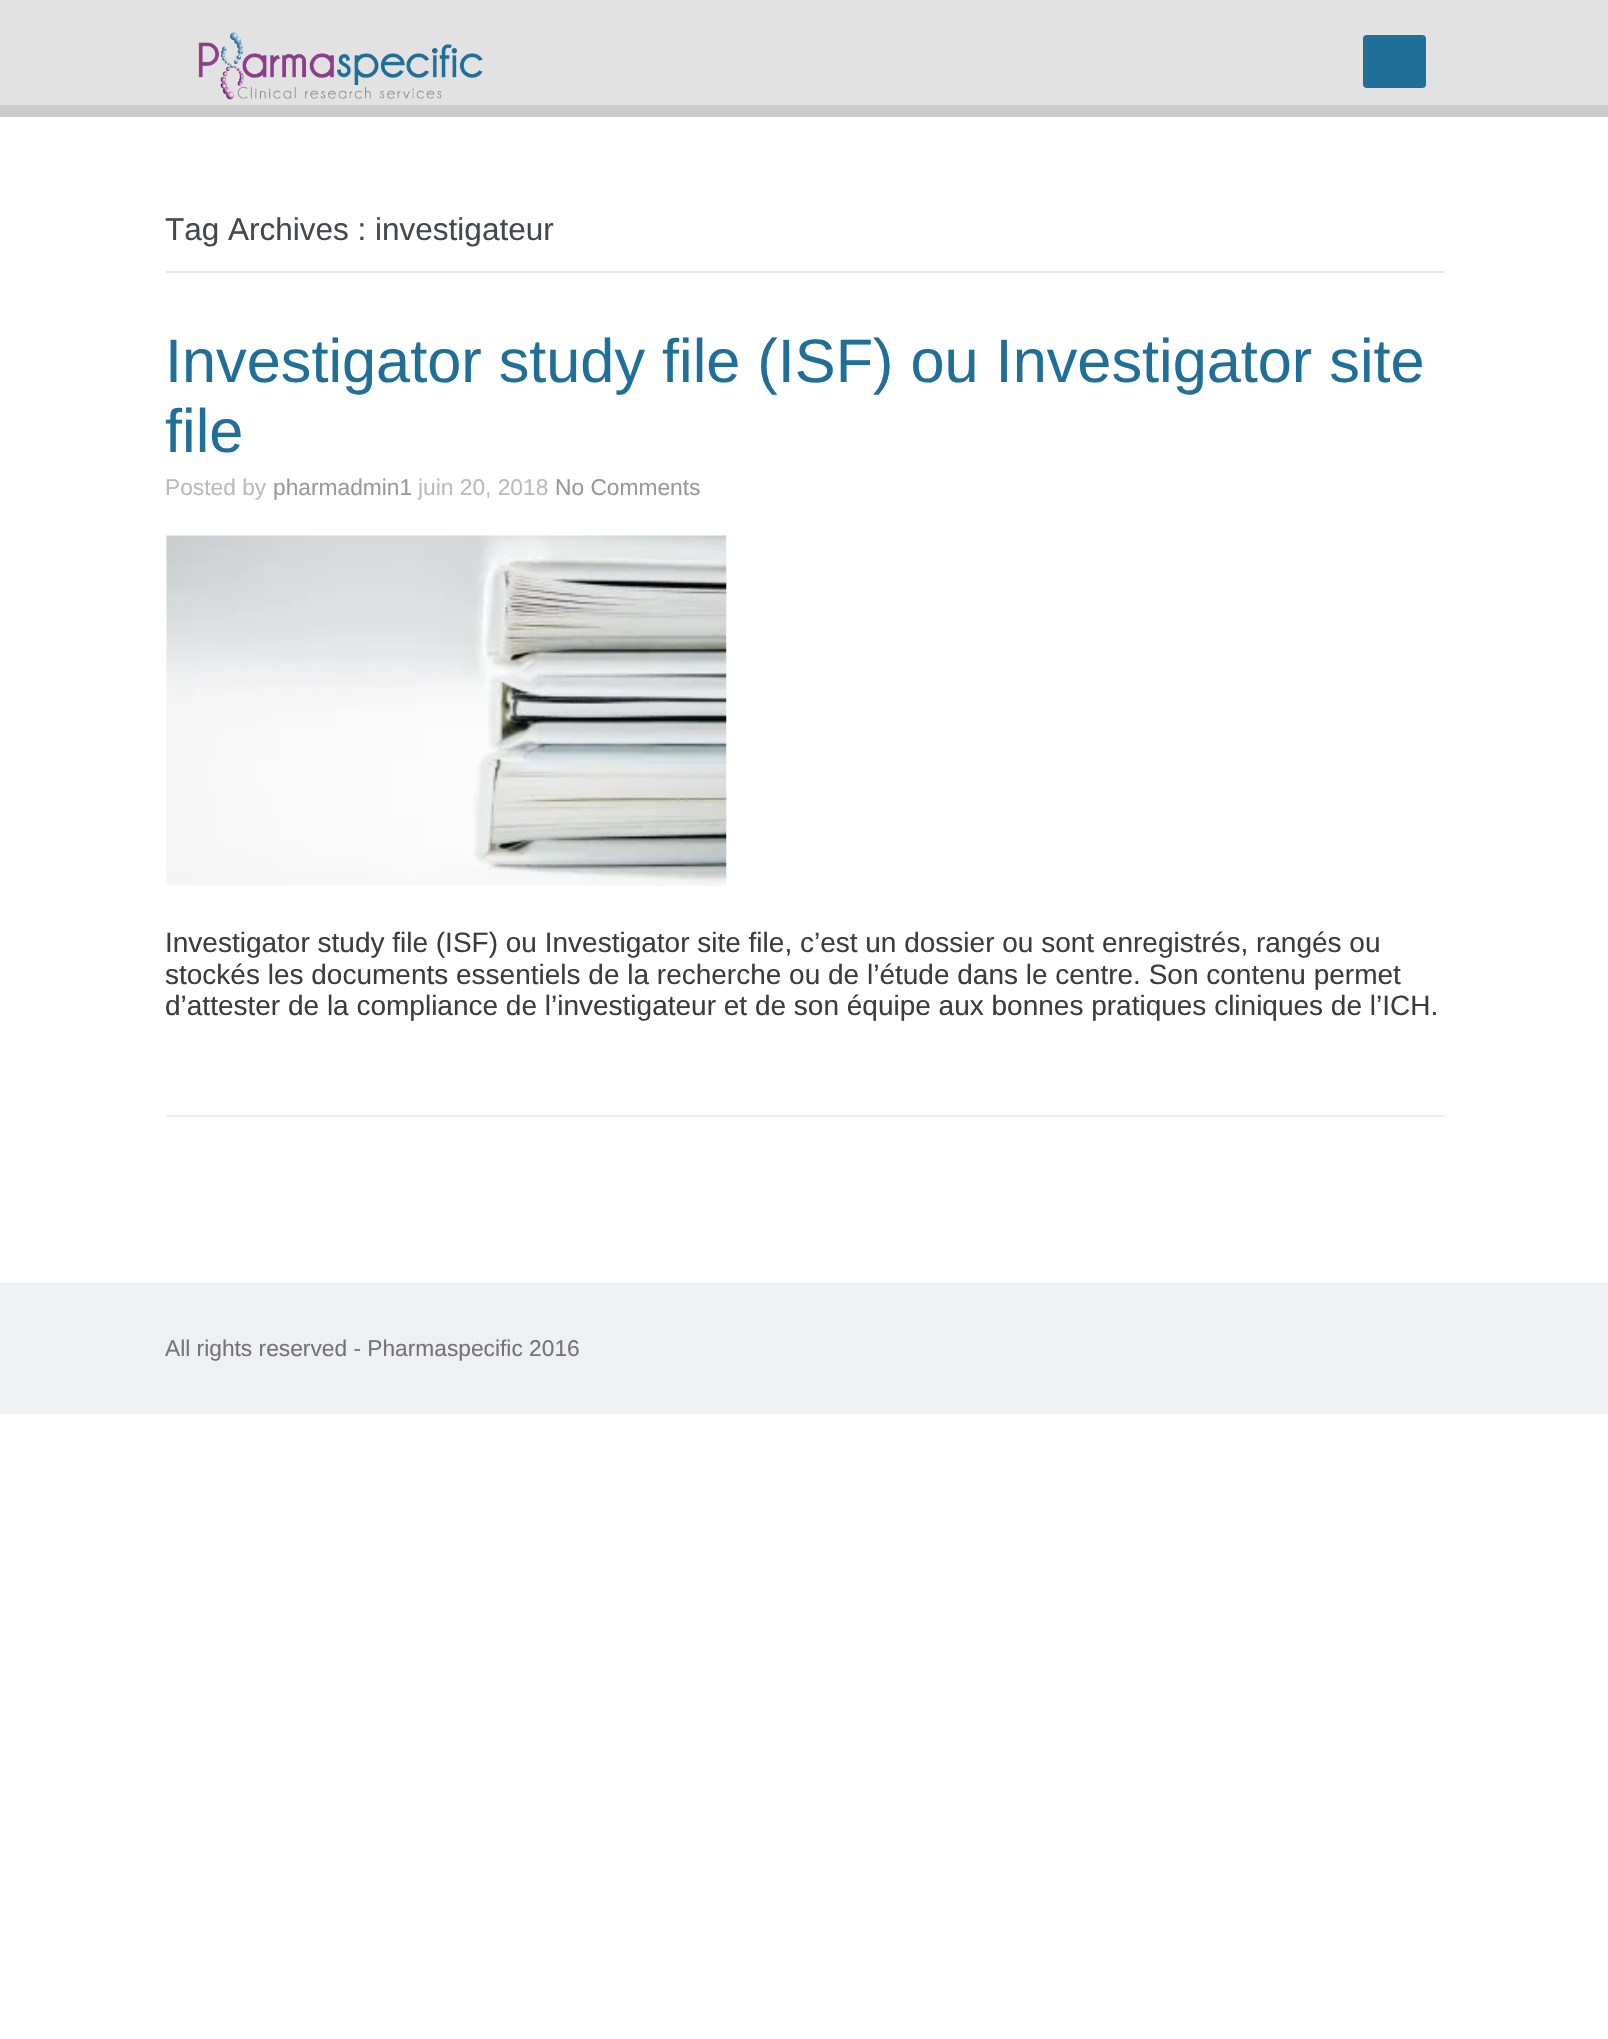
void draw(SkCanvas* canvas) {
  SkPaint paint;
  paint.setAntiAlias(true);
  auto face = [&](const char* family, int weight, float size, bool italic = false) {
    SkFontStyle style(weight, SkFontStyle::kNormal_Width,
      italic ? SkFontStyle::kItalic_Slant : SkFontStyle::kUpright_Slant);
    SkFont result(fontMgr->matchFamilyStyle(family, style), size);
    result.setSubpixel(true);
    return result;
  };
  auto paste = [&](const char* path, float x, float y, float w, float h) {
    auto image = SkImages::DeferredFromEncodedData(SkData::MakeFromFileName(path));
    canvas->drawImageRect(image, SkRect::MakeXYWH(x, y, w, h), SkSamplingOptions());
  };
  canvas->clear(0xffffffff);
  paint.setColor(0xffe2e2e2);
  canvas->drawRect(SkRect::MakeXYWH(0, 0, 1608, 105), paint);
  paint.setColor(0xffcbcbcb);
  canvas->drawRect(SkRect::MakeXYWH(0, 105, 1608, 12), paint);
  paste("img/1.png", 198, 32, 285, 68);
  paint.setColor(0xff206f98);
  canvas->drawRoundRect(SkRect::MakeXYWH(1363, 35, 63, 53), 4, 4, paint);
  paint.setColor(0xffe7e7e7);
  canvas->drawRect(SkRect::MakeXYWH(166, 271, 1278, 2), paint);
  paint.setColor(0xffefefef);
  canvas->drawRect(SkRect::MakeXYWH(166, 1115, 1278, 2), paint);
  paste("img/2.png", 166, 535, 561, 351);
  paint.setColor(0xffeff0f2);
  canvas->drawRect(SkRect::MakeXYWH(0, 1283, 1608, 131), paint);
  auto f0 = face("Liberation Sans", 400, 31.5f);
  paint.setColor(0xff43484d);
  canvas->drawString("Tag Archives : investigateur", 165, 240, f0, paint);
  auto f1 = face("Liberation Sans", 400, 61.25f);
  paint.setColor(0xff206f98);
  canvas->drawString("Investigator study file (ISF) ou Investigator site", 165, 382, f1, paint);
  canvas->drawString("file", 165, 452, f1, paint);
  auto f2 = face("Liberation Sans", 400, 22.75f);
  paint.setColor(0xffbbbbbb);
  canvas->drawString("Posted by", 165, 495, f2, paint);
  paint.setColor(0xff999999);
  canvas->drawString("pharmadmin1", 273, 495, f2, paint);
  paint.setColor(0xffbbbbbb);
  canvas->drawString("juin 20, 2018", 418, 495, f2, paint);
  paint.setColor(0xff999999);
  canvas->drawString("No Comments", 555, 495, f2, paint);
  auto f3 = face("Liberation Sans", 400, 28);
  paint.setColor(0xff3d3c3d);
  {
    const struct { const char* s; float x, y; } items[] = {
      {"Investigator study file (ISF) ou Investigator site file, c’est un dossier ou sont enregistrés, rangés ou", 165, 952},
      {"stockés les documents essentiels de la recherche ou de l’étude dans le centre. Son contenu permet", 165, 984},
      {"d’attester de la compliance de l’investigateur et de son équipe aux bonnes pratiques cliniques de l’ICH.", 165, 1015},
    };
    for (auto [s, x, y] : items) {
      canvas->drawString(s, x, y, f3, paint);
    }
  }
  paint.setColor(0xff747474);
  canvas->drawString("All rights reserved - Pharmaspecific 2016", 165, 1356, f2, paint);
}
